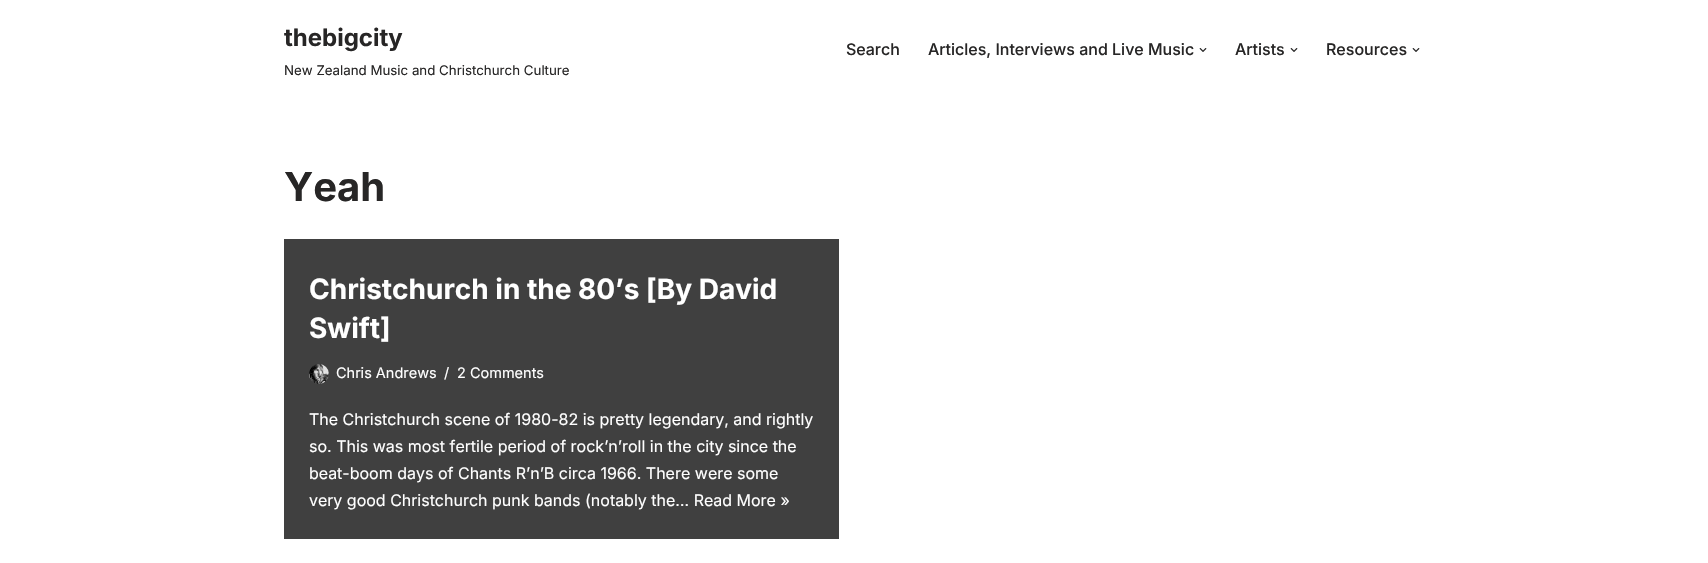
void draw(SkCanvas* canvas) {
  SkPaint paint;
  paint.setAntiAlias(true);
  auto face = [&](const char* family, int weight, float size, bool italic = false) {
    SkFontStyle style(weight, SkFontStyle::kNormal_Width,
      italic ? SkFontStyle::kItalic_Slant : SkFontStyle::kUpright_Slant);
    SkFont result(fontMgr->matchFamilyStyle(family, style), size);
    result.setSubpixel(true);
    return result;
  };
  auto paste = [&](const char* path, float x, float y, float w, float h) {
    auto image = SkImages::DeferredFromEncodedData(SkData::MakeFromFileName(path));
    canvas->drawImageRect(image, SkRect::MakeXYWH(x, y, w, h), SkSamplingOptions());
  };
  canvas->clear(0xffffffff);
  paste("img/1.png", 1199, 48, 8, 4);
  paste("img/1.png", 1290, 48, 8, 4);
  paste("img/1.png", 1412, 48, 8, 4);
  paint.setColor(0xff404040);
  canvas->drawRect(SkRect::MakeXYWH(284, 239, 555, 300), paint);
  paste("img/2.png", 309, 364, 20, 20);
  auto f0 = face("Inter", 700, 24);
  paint.setColor(0xff272626);
  canvas->drawString("thebigcity", 284, 46, f0, paint);
  auto f1 = face("Inter", 400, 13.3f);
  canvas->drawString("New Zealand Music and Christchurch Culture", 284, 75, f1, paint);
  auto f2 = face("Inter", 500, 16);
  {
    const struct { const char* s; float x, y; } items[] = {
      {"Search", 846, 55},
      {"Articles, Interviews and Live Music", 928, 55},
      {"Artists", 1235, 55},
      {"Resources", 1326, 55},
    };
    for (auto [s, x, y] : items) {
      canvas->drawString(s, x, y, f2, paint);
    }
  }
  auto f3 = face("Inter", 700, 40);
  canvas->drawString("Yeah", 284, 201, f3, paint);
  auto f4 = face("Inter", 700, 28);
  paint.setColor(0xffffffff);
  canvas->drawString("Christchurch in the 80’s [By David", 309, 299, f4, paint);
  canvas->drawString("Swift]", 309, 338, f4, paint);
  auto f5 = face("Inter", 400, 14.5f);
  {
    const struct { const char* s; float x, y; } items[] = {
      {"Chris Andrews", 336, 378},
      {"/", 444, 378},
      {"2 Comments", 457, 378},
    };
    for (auto [s, x, y] : items) {
      canvas->drawString(s, x, y, f5, paint);
    }
  }
  auto f6 = face("Inter", 400, 16);
  {
    const struct { const char* s; float x, y; } items[] = {
      {"The Christchurch scene of 1980-82 is pretty legendary, and rightly", 309, 425},
      {"so. This was most fertile period of rock’n’roll in the city since the", 309, 452},
      {"beat-boom days of Chants R’n’B circa 1966. There were some", 309, 479},
      {"very good Christchurch punk bands (notably the… Read More »", 309, 506},
    };
    for (auto [s, x, y] : items) {
      canvas->drawString(s, x, y, f6, paint);
    }
  }
}
